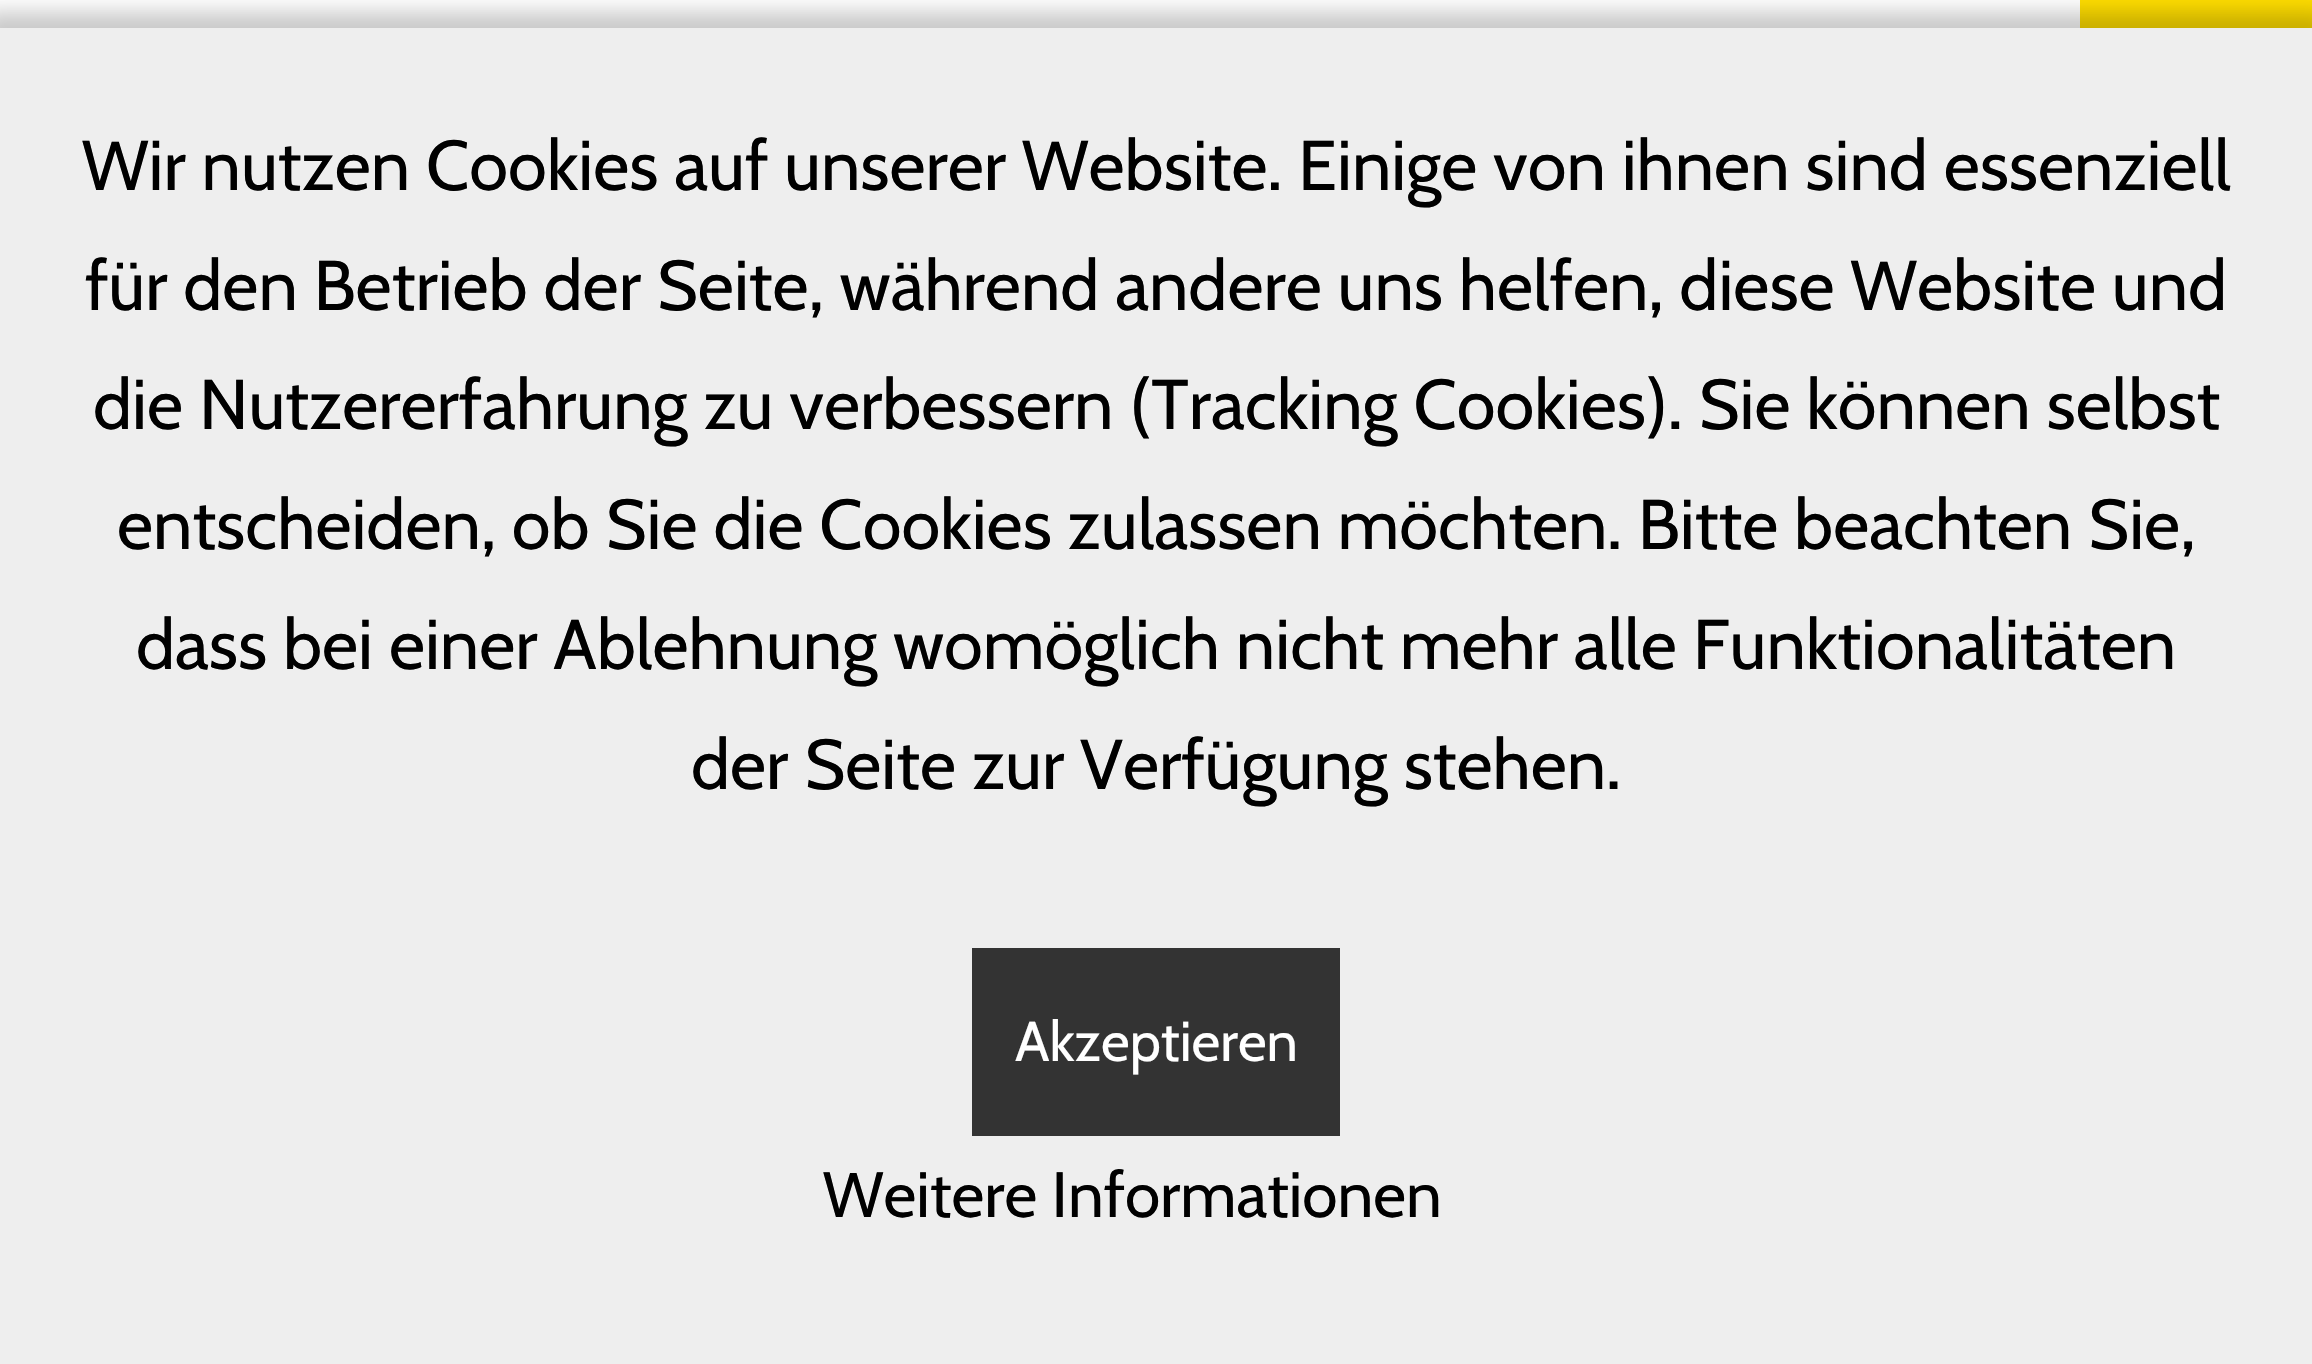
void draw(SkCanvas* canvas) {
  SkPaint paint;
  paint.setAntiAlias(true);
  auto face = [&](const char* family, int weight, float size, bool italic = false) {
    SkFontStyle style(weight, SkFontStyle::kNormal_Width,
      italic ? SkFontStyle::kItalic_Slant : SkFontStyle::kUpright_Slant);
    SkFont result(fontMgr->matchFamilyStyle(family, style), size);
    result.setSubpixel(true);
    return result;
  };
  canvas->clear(0xffffffff);
  paint.setColor(0xffffdd00);
  canvas->drawRect(SkRect::MakeXYWH(2080, 0, 232, 28), paint);
  paint.setColor(0x36000000);
  paint.setMaskFilter(SkMaskFilter::MakeBlur(kNormal_SkBlurStyle, 10));
  canvas->drawRect(SkRect::MakeXYWH(-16, 12, 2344, 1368), paint);
  paint.setMaskFilter(nullptr);
  paint.setColor(0xffeeeeee);
  canvas->drawRect(SkRect::MakeXYWH(0, 28, 2312, 1336), paint);
  paint.setColor(0xff333333);
  canvas->drawRect(SkRect::MakeXYWH(972, 948, 368, 188), paint);
  auto f0 = face("Cabin", 400, 70.4f);
  paint.setColor(0xff000000);
  {
    const struct { const char* s; float x, y; } items[] = {
      {"Wir nutzen Cookies auf unserer Website. Einige von ihnen sind essenziell", 82, 190},
      {"für den Betrieb der Seite, während andere uns helfen, diese Website und", 85, 310},
      {"die Nutzererfahrung zu verbessern (Tracking Cookies). Sie können selbst", 93, 429},
      {"entscheiden, ob Sie die Cookies zulassen möchten. Bitte beachten Sie,", 117, 549},
      {"dass bei einer Ablehnung womöglich nicht mehr alle Funktionalitäten", 136, 669},
      {"der Seite zur Verfügung stehen.", 691, 789},
    };
    for (auto [s, x, y] : items) {
      canvas->drawString(s, x, y, f0, paint);
    }
  }
  auto f1 = face("Cabin", 400, 56);
  paint.setColor(0xffffffff);
  canvas->drawString("Akzeptieren", 1015, 1061, f1, paint);
  auto f2 = face("Cabin", 400, 64);
  paint.setColor(0xff000000);
  canvas->drawString("Weitere Informationen", 823, 1217, f2, paint);
}
